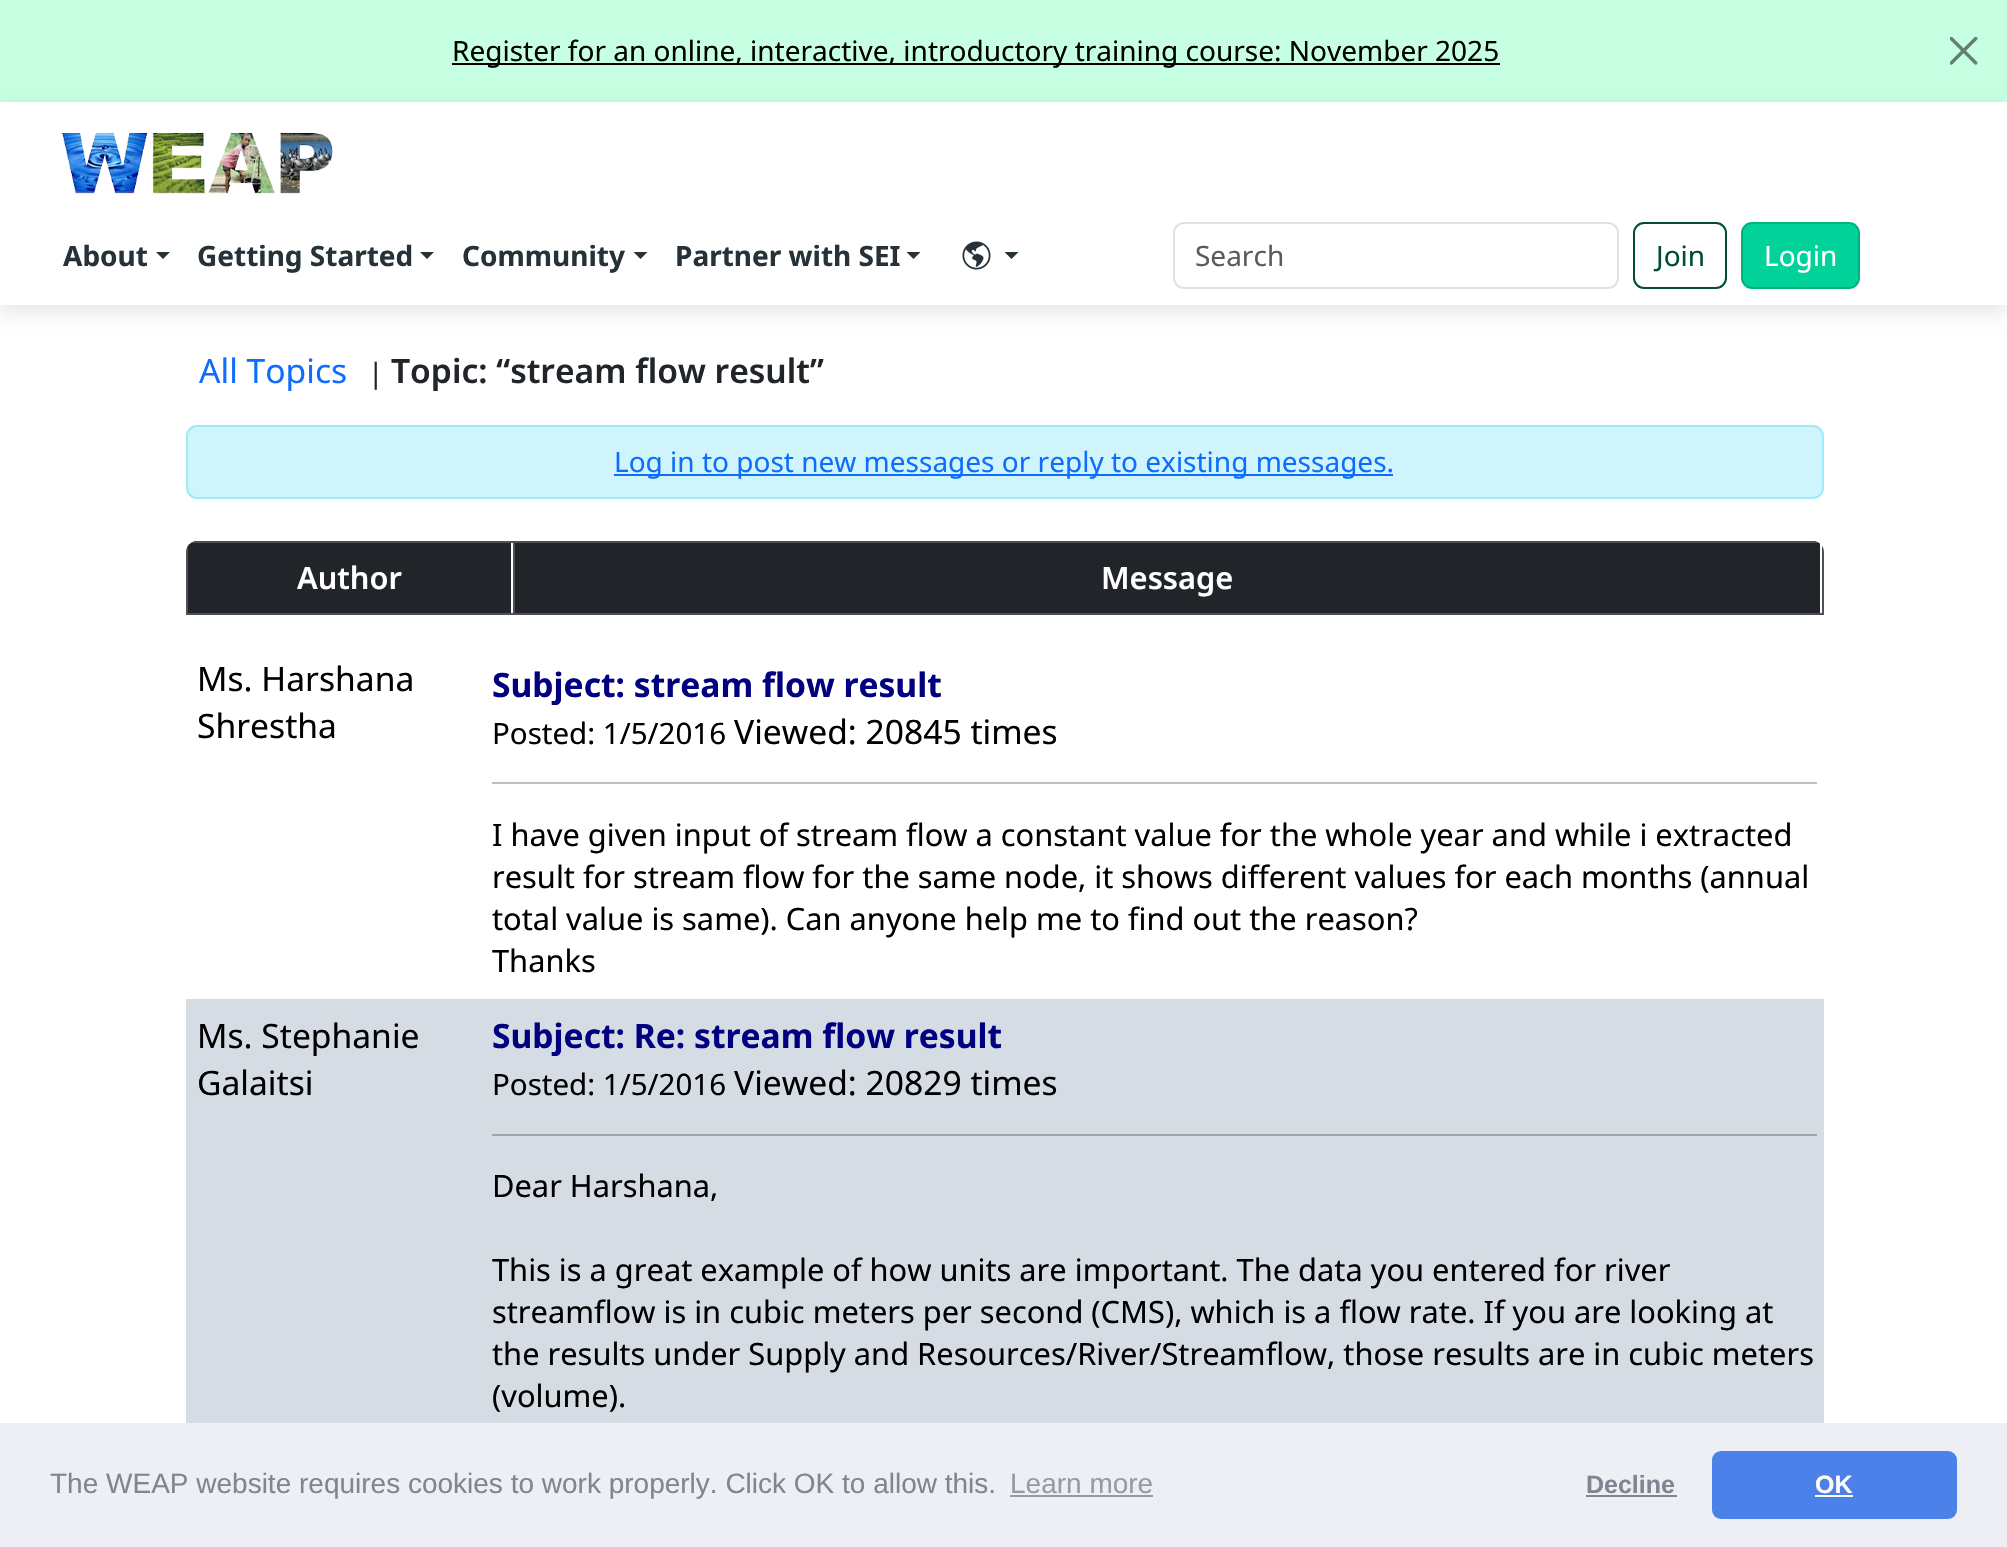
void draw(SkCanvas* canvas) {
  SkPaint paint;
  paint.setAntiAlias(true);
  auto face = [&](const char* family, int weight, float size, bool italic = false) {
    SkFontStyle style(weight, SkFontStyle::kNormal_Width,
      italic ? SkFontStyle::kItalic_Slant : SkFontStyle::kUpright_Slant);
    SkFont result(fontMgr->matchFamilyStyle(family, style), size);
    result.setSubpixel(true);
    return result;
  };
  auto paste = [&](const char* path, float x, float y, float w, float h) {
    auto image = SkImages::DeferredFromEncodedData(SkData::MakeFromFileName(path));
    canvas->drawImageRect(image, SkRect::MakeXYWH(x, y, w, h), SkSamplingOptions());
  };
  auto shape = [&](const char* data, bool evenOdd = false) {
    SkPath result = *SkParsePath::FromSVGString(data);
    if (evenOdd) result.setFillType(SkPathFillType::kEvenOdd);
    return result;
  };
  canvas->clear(0xffffffff);
  paint.setColor(0xffc7ffe2);
  canvas->drawRect(SkRect::MakeXYWH(0, 0, 2007, 102), paint);
  paint.setColor(0xff000000);
  canvas->drawRect(SkRect::MakeXYWH(452, 63, 1048, 2), paint);
  paste("img/1.png", 1950, 37, 28, 28);
  paint.setColor(0x1a000000);
  paint.setMaskFilter(SkMaskFilter::MakeBlur(kNormal_SkBlurStyle, 9));
  canvas->drawRect(SkRect::MakeXYWH(0, 109, 2007, 203), paint);
  paint.setMaskFilter(nullptr);
  paint.setColor(0xffffffff);
  canvas->drawRect(SkRect::MakeXYWH(0, 102, 2007, 203), paint);
  paste("img/2.png", 62, 132, 271, 62);
  paint.setColor(0xff263238);
  canvas->drawPath(shape("M156 252H170L163 259Z"), paint);
  canvas->drawPath(shape("M420 252H434L427 259Z"), paint);
  canvas->drawPath(shape("M633.5 252H647.5L640.5 259Z"), paint);
  canvas->drawPath(shape("M906.5 252H920.5L913.5 259Z"), paint);
  paste("img/3.png", 962, 241, 29, 29);
  canvas->drawPath(shape("M1004.5 252H1018.5L1011.5 259Z"), paint);
  paint.setStroke(true);
  paint.setStrokeWidth(2);
  paint.setColor(0xffdee2e6);
  canvas->drawRoundRect(SkRect::MakeXYWH(1174, 223, 444, 65), 10, 10, paint);
  paint.setColor(0xff004d33);
  canvas->drawRoundRect(SkRect::MakeXYWH(1634, 223, 92, 65), 10, 10, paint);
  paint.setStroke(false);
  paint.setColor(0xff00d29a);
  canvas->drawRoundRect(SkRect::MakeXYWH(1742, 223, 117, 65), 10, 10, paint);
  paint.setStroke(true);
  paint.setColor(0xff00b37e);
  canvas->drawRoundRect(SkRect::MakeXYWH(1742, 223, 117, 65), 10, 10, paint);
  paint.setStroke(false);
  paint.setColor(0xffcff4fc);
  canvas->drawRoundRect(SkRect::MakeXYWH(187, 426, 1636, 72), 10, 10, paint);
  paint.setStroke(true);
  paint.setColor(0xff9eeaf9);
  canvas->drawRoundRect(SkRect::MakeXYWH(187, 426, 1636, 72), 10, 10, paint);
  paint.setStroke(false);
  paint.setColor(0xff0d6efd);
  canvas->drawRect(SkRect::MakeXYWH(614, 474, 779, 2), paint);
  canvas->save();
  canvas->clipPath(shape("M197 541H1813C1819 541 1824 546 1824 552V2320C1824 2326 1819 2331 1813 2331H197C191 2331 186 2326 186 2320V552C186 546 191 541 197 541Z"), true);
  {
    const struct { float x, y, w, h; SkColor color; } items[] = {
      {187, 541, 324, 72, 0xff212529},
      {515, 541, 1305, 72, 0xff212529},
      {186, 541, 1638, 2, 0xff4d5154},
    };
    for (auto [x, y, w, h, color] : items) {
      paint.setColor(color);
      canvas->drawRect(SkRect::MakeXYWH(x, y, w, h), paint);
    }
  }
  canvas->restore();
  canvas->drawRect(SkRect::MakeXYWH(186, 613, 1638, 2), paint);
  canvas->save();
  canvas->clipPath(shape("M197 541H1813C1819 541 1824 546 1824 552V2320C1824 2326 1819 2331 1813 2331H197C191 2331 186 2326 186 2320V552C186 546 191 541 197 541Z"), true);
  canvas->drawRect(SkRect::MakeXYWH(186, 541, 2, 73), paint);
  canvas->drawRect(SkRect::MakeXYWH(1822, 541, 2, 73), paint);
  canvas->restore();
  {
    const struct { float x, y, w, h; SkColor color; } items[] = {
      {513, 541, 2, 73, 0xff4d5154},
      {492, 782, 1325, 2, 0xffbfbfbf},
      {186, 999, 1638, 424, 0xffd5dce4},
      {492, 1134, 1325, 2, 0xffa0a5ab},
      {0, 1423, 2007, 124, 0xffedeff5},
      {1010, 1495, 143, 2, 0xff9899a5},
      {1586, 1495, 91, 2, 0xff838391},
    };
    for (auto [x, y, w, h, color] : items) {
      paint.setColor(color);
      canvas->drawRect(SkRect::MakeXYWH(x, y, w, h), paint);
    }
  }
  paint.setColor(0xff4b81e8);
  canvas->drawRoundRect(SkRect::MakeXYWH(1712, 1451, 245, 68), 9, 9, paint);
  paint.setColor(0xffffffff);
  canvas->drawRect(SkRect::MakeXYWH(1815, 1495, 38, 2), paint);
  auto f0 = face("Noto Sans", 400, 28);
  paint.setColor(0xff000000);
  canvas->drawString("Register for an online, interactive, introductory training course: November 2025", 452, 61, f0, paint);
  auto f1 = face("Noto Sans", 700, 28);
  paint.setColor(0xff263238);
  {
    const struct { const char* s; float x, y; } items[] = {
      {"About", 63, 266},
      {"Getting Started", 197, 266},
      {"Community", 462, 266},
      {"Partner with SEI", 675, 266},
    };
    for (auto [s, x, y] : items) {
      canvas->drawString(s, x, y, f1, paint);
    }
  }
  paint.setColor(0xff595c5f);
  canvas->drawString("Search", 1195, 266, f0, paint);
  paint.setColor(0xff004d33);
  canvas->drawString("Join", 1656, 266, f0, paint);
  paint.setColor(0xffffffff);
  canvas->drawString("Login", 1764, 266, f0, paint);
  auto f2 = face("Noto Sans", 400, 33.6f);
  paint.setColor(0xff0d6efd);
  canvas->drawString("All Topics", 199, 383, f2, paint);
  paint.setColor(0xff212529);
  canvas->drawString("|", 368, 383, f0, paint);
  auto f3 = face("Noto Sans", 600, 33.6f);
  canvas->drawString("Topic: “stream flow result”", 391, 383, f3, paint);
  paint.setColor(0xff0d6efd);
  canvas->drawString("Log in to post new messages or reply to existing messages.", 614, 472, f0, paint);
  auto f4 = face("Noto Sans", 600, 30.8f);
  paint.setColor(0xffffffff);
  canvas->drawString("Author", 297, 589, f4, paint);
  canvas->drawString("Message", 1101, 589, f4, paint);
  paint.setColor(0xff000000);
  canvas->drawString("Ms. Harshana", 197, 691, f2, paint);
  canvas->drawString("Shrestha", 197, 738, f2, paint);
  auto f5 = face("Noto Sans", 700, 33.6f);
  paint.setColor(0xff000080);
  canvas->drawString("Subject: stream flow result", 492, 697, f5, paint);
  auto f6 = face("Noto Sans", 400, 29.5f);
  paint.setColor(0xff000000);
  canvas->drawString("Posted: 1/5/2016", 492, 744, f6, paint);
  canvas->drawString("Viewed: 20845 times", 734, 744, f2, paint);
  auto f7 = face("Noto Sans", 400, 30.8f);
  {
    const struct { const char* s; float x, y; } items[] = {
      {"I have given input of stream flow a constant value for the whole year and while i extracted", 492, 846},
      {"result for stream flow for the same node, it shows different values for each months (annual", 492, 888},
      {"total value is same). Can anyone help me to find out the reason?", 492, 930},
      {"Thanks", 492, 972},
    };
    for (auto [s, x, y] : items) {
      canvas->drawString(s, x, y, f7, paint);
    }
  }
  canvas->drawString("Ms. Stephanie", 197, 1048, f2, paint);
  canvas->drawString("Galaitsi", 197, 1095, f2, paint);
  paint.setColor(0xff000080);
  canvas->drawString("Subject: Re: stream flow result", 492, 1048, f5, paint);
  paint.setColor(0xff000000);
  canvas->drawString("Posted: 1/5/2016", 492, 1095, f6, paint);
  canvas->drawString("Viewed: 20829 times", 734, 1095, f2, paint);
  {
    const struct { const char* s; float x, y; } items[] = {
      {"Dear Harshana,", 492, 1197},
      {"This is a great example of how units are important. The data you entered for river", 492, 1281},
      {"streamflow is in cubic meters per second (CMS), which is a flow rate. If you are looking at", 492, 1323},
      {"the results under Supply and Resources/River/Streamflow, those results are in cubic meters", 492, 1365},
      {"(volume).", 492, 1407},
    };
    for (auto [s, x, y] : items) {
      canvas->drawString(s, x, y, f7, paint);
    }
  }
  auto f8 = face("Liberation Sans", 400, 28);
  paint.setColor(0xff838391);
  canvas->drawString("The WEAP website requires cookies to work properly. Click OK to allow this.", 50, 1493, f8, paint);
  paint.setColor(0xff9899a5);
  canvas->drawString("Learn more", 1010, 1493, f8, paint);
  auto f9 = face("Liberation Sans", 700, 25);
  paint.setColor(0xff838391);
  canvas->drawString("Decline", 1586, 1493, f9, paint);
  paint.setColor(0xffffffff);
  canvas->drawString("OK", 1815, 1493, f9, paint);
}
